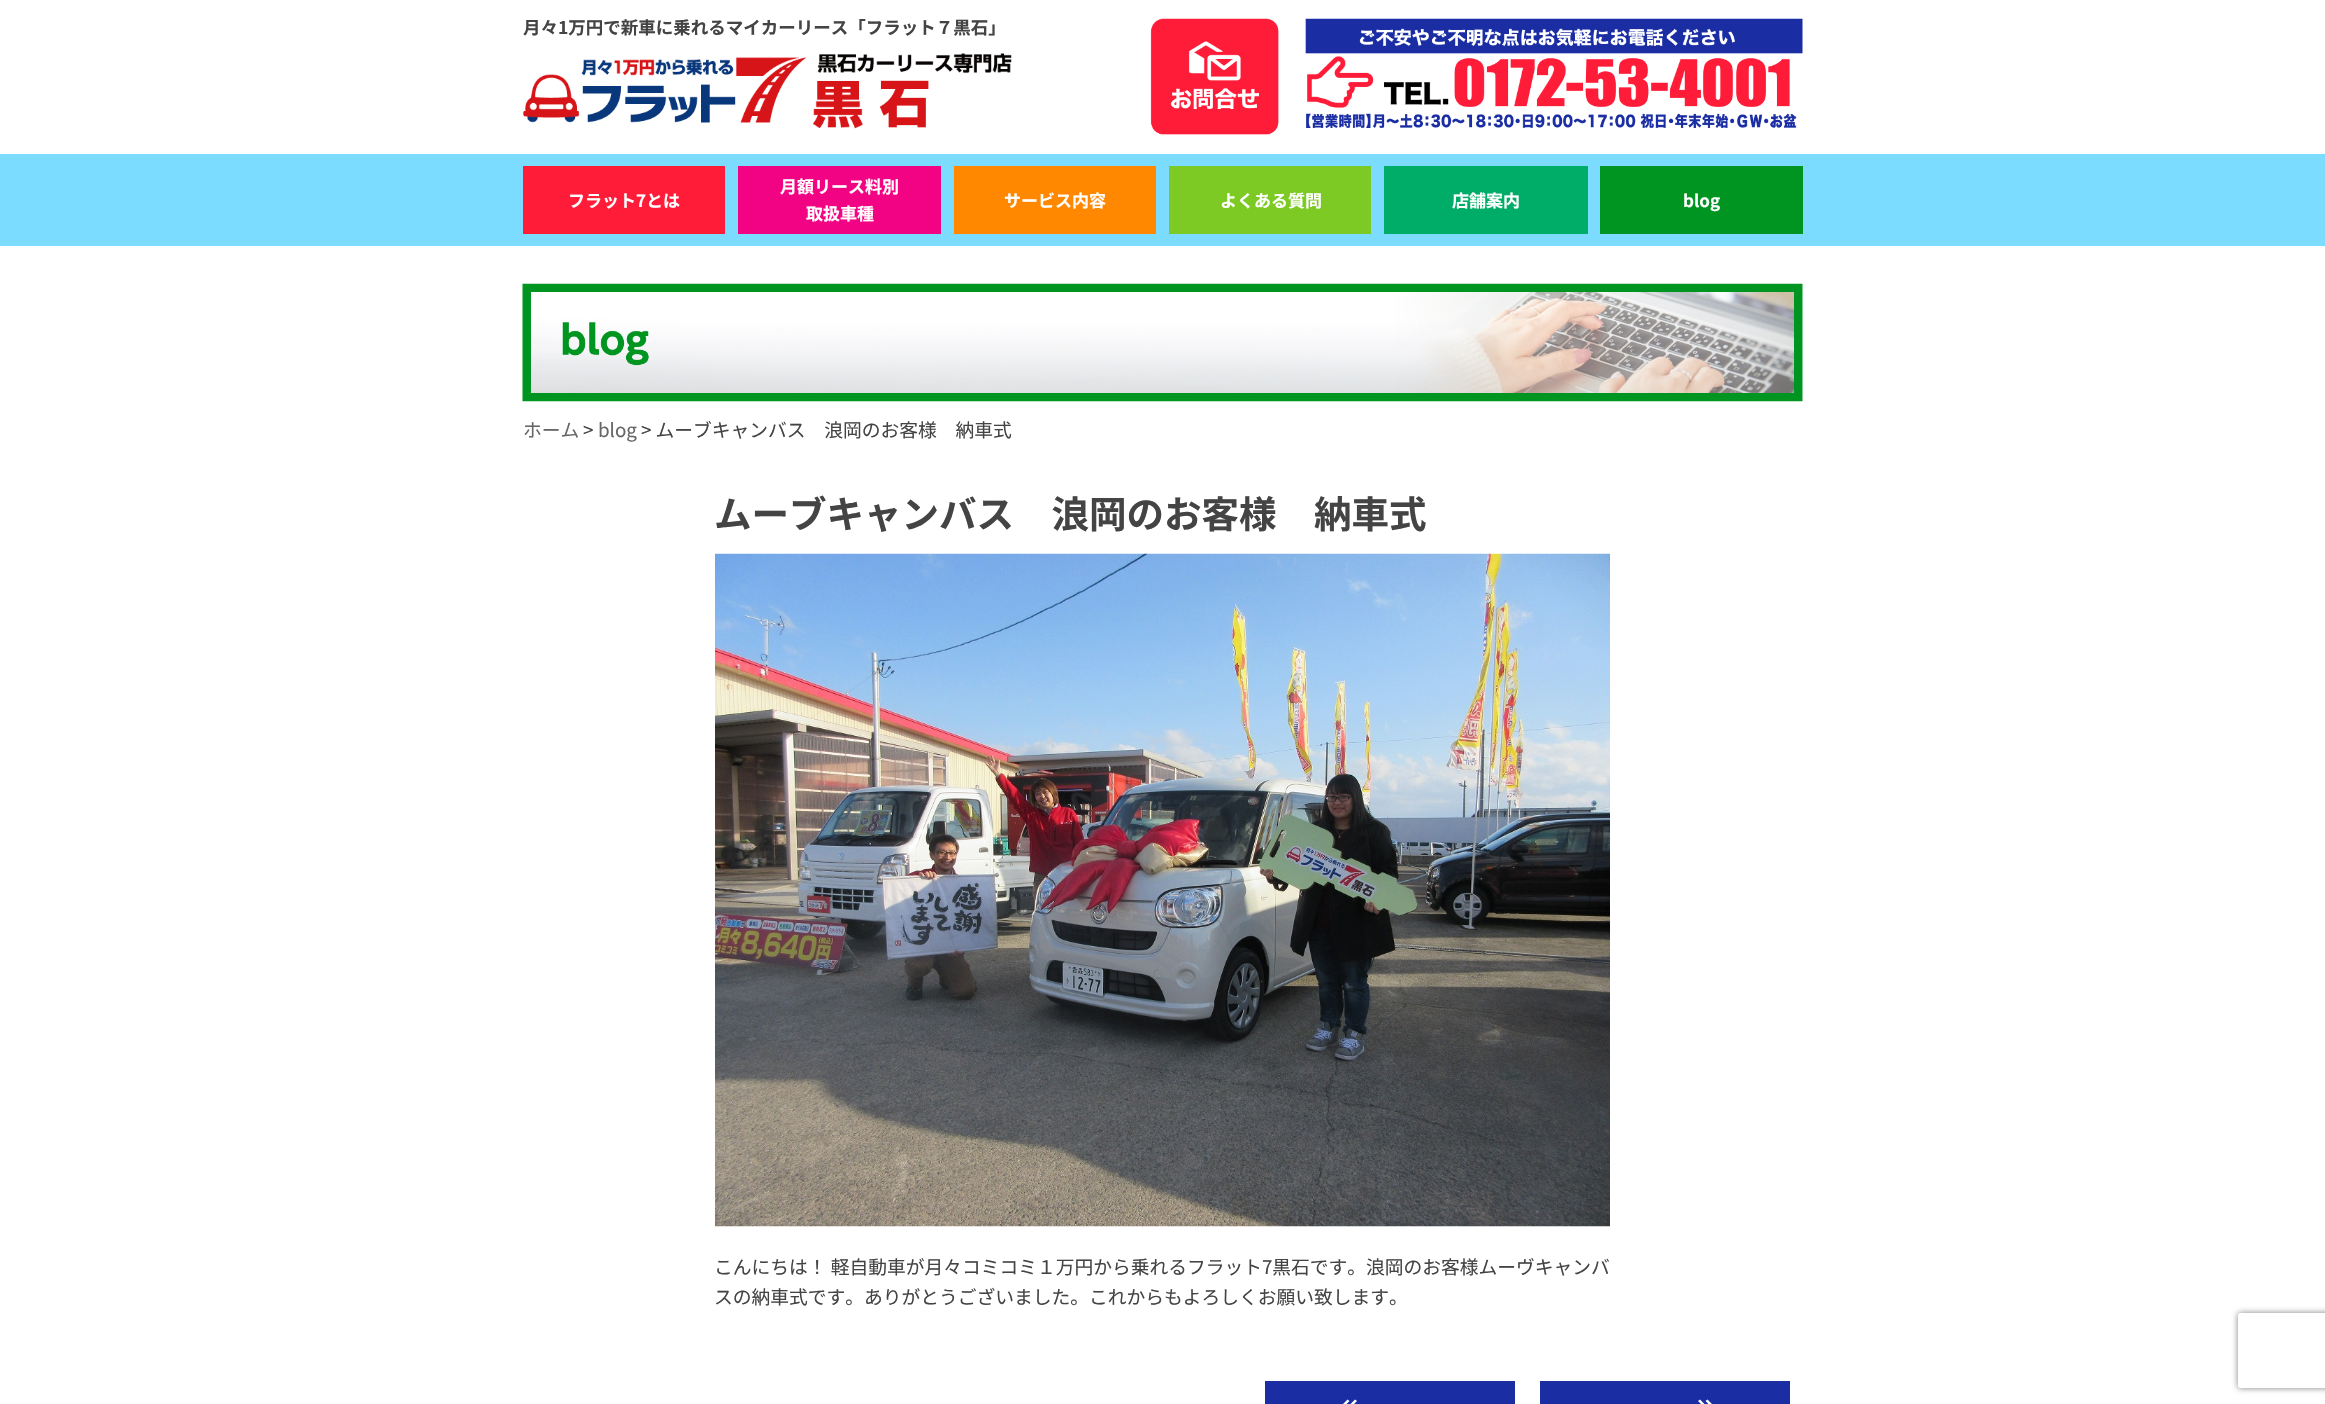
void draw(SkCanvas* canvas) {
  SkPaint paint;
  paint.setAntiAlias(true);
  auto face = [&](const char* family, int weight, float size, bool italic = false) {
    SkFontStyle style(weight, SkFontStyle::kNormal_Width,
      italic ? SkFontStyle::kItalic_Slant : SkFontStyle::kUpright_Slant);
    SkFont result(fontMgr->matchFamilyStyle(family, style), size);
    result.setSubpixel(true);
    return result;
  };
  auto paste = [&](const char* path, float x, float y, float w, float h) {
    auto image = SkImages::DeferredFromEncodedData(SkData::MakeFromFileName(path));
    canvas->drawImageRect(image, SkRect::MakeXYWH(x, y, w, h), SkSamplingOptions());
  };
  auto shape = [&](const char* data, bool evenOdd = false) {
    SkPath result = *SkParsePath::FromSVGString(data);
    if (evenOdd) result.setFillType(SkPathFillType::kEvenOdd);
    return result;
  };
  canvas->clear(0xffffffff);
  paste("img/1.png", 523, 53, 489, 76);
  paste("img/2.png", 1150, 18, 129, 117);
  paste("img/3.png", 1305, 18, 498, 110);
  {
    const struct { float x, y, w, h; SkColor color; } items[] = {
      {0, 154, 2325, 92, 0xff7cdcff},
      {523, 166, 202, 68, 0xffff1c38},
      {738, 166, 203, 68, 0xfff20383},
      {954, 166, 202, 68, 0xffff8800},
      {1169, 166, 202, 68, 0xff7cca23},
      {1384, 166, 204, 68, 0xff00ad68},
      {1600, 166, 203, 68, 0xff009521},
    };
    for (auto [x, y, w, h, color] : items) {
      paint.setColor(color);
      canvas->drawRect(SkRect::MakeXYWH(x, y, w, h), paint);
    }
  }
  paste("img/4.png", 522, 283, 1281, 119);
  paste("img/5.png", 715, 553, 895, 674);
  paint.setColor(0xff1a2da3);
  canvas->drawRect(SkRect::MakeXYWH(1265, 1381, 250, 23), paint);
  paint.setColor(0xffffffff);
  canvas->drawPath(shape("M1347.5 1399.5L1349.5 1401L1338.5 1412L1337 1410ZM1355 1399.5L1357 1401L1346 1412L1344.5 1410Z"), paint);
  paint.setColor(0xff1a2da3);
  canvas->drawRect(SkRect::MakeXYWH(1540, 1381, 250, 23), paint);
  paint.setColor(0xffffffff);
  canvas->drawPath(shape("M1707.5 1399.5L1718 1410L1716.5 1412L1705.5 1401ZM1700 1399.5L1710.5 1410L1709 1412L1698 1401Z"), paint);
  canvas->save();
  canvas->clipPath(shape("M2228 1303H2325V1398H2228ZM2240.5 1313H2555.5C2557 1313 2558 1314 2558 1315.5V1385.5C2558 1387 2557 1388 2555.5 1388H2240.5C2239 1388 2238 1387 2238 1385.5V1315.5C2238 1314 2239 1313 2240.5 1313Z", true), true);
  paint.setColor(0xff808080);
  paint.setMaskFilter(SkMaskFilter::MakeBlur(kNormal_SkBlurStyle, 3));
  canvas->drawRoundRect(SkRect::MakeXYWH(2238, 1313, 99, 75), 2.5f, 2.5f, paint);
  paint.setMaskFilter(nullptr);
  canvas->restore();
  auto f0 = face("Noto Sans JP", 700, 17.5f);
  paint.setColor(0xff444444);
  canvas->drawString("月々1万円で新車に乗れるマイカーリース「フラット７黒石」", 523, 34, f0, paint);
  auto f1 = face("Noto Sans JP", 700, 17);
  paint.setColor(0xffffffff);
  {
    const struct { const char* s; float x, y; } items[] = {
      {"フラット7とは", 568, 207},
      {"月額リース料別", 780, 193},
      {"取扱車種", 806, 220},
      {"サービス内容", 1004, 207},
      {"よくある質問", 1220, 207},
      {"店舗案内", 1452, 207},
      {"blog", 1683, 207},
    };
    for (auto [s, x, y] : items) {
      canvas->drawString(s, x, y, f1, paint);
    }
  }
  auto f2 = face("Noto Sans JP", 400, 18.75f);
  paint.setColor(0xff666666);
  canvas->drawString("ホーム", 523, 437, f2, paint);
  paint.setColor(0xff444444);
  canvas->drawString(">", 583, 437, f2, paint);
  paint.setColor(0xff666666);
  canvas->drawString("blog", 598, 437, f2, paint);
  paint.setColor(0xff444444);
  canvas->drawString("> ムーブキャンバス　浪岡のお客様　納車式", 641, 437, f2, paint);
  auto f3 = face("Noto Sans JP", 700, 37.5f);
  canvas->drawString("ムーブキャンバス　浪岡のお客様　納車式", 714, 528, f3, paint);
  canvas->drawString("こんにちは！ 軽自動車が月々コミコミ１万円から乗れるフラット7黒石です。浪岡のお客様ムーヴキャンバ", 714, 1274, f2, paint);
  canvas->drawString("スの納車式です。ありがとうございました。これからもよろしくお願い致します。", 714, 1304, f2, paint);
}
